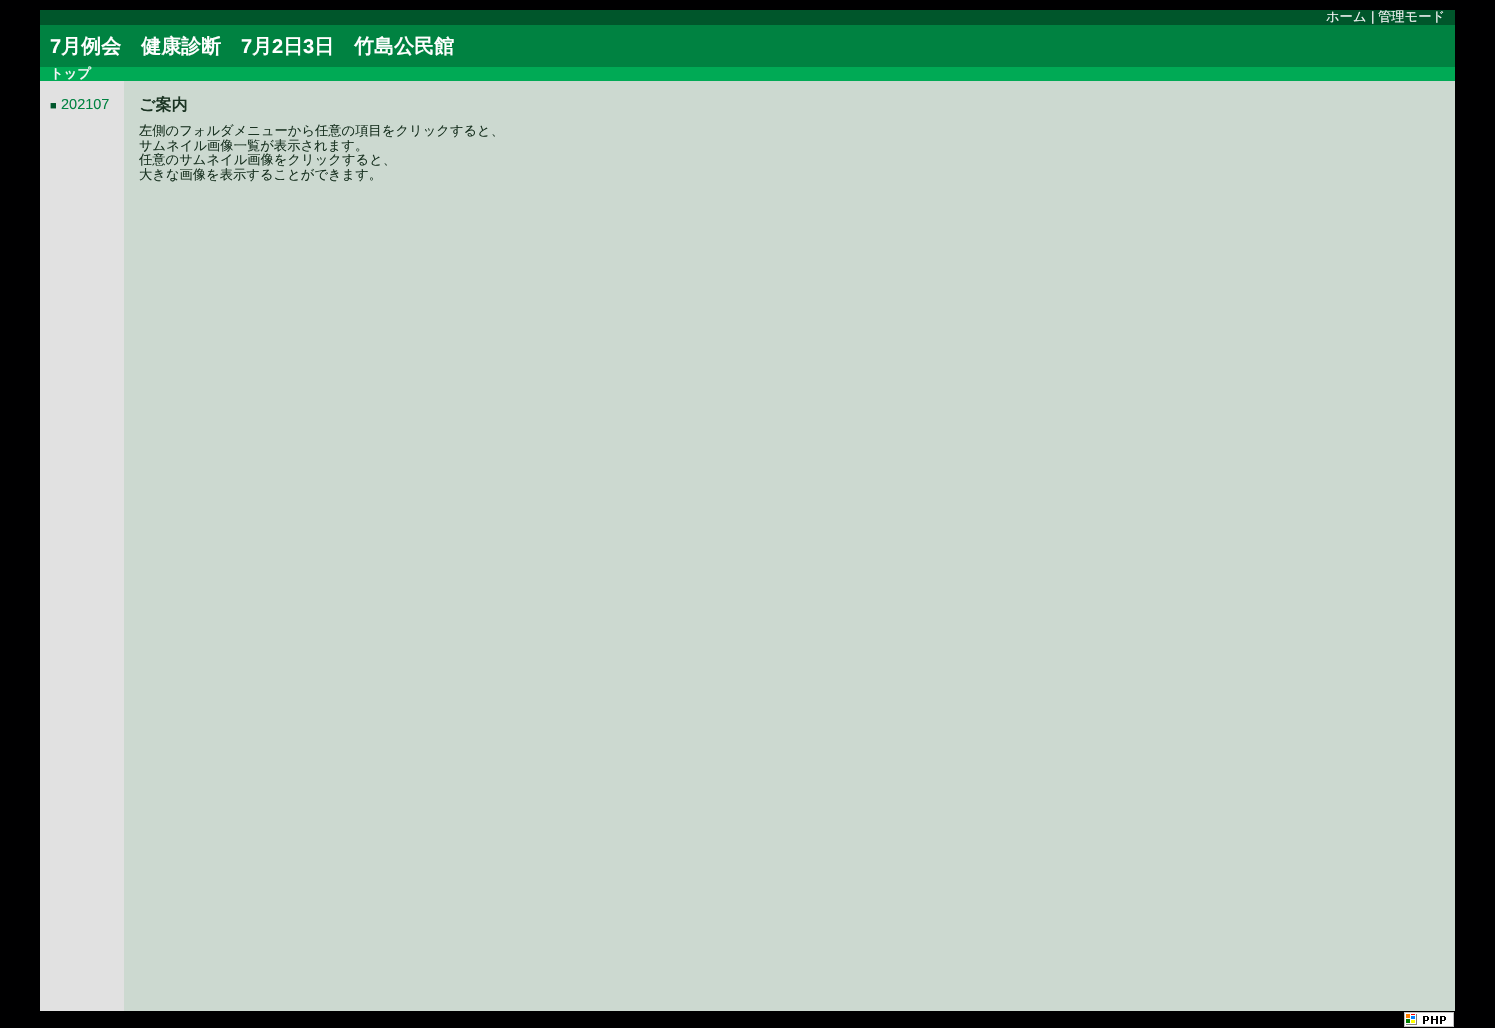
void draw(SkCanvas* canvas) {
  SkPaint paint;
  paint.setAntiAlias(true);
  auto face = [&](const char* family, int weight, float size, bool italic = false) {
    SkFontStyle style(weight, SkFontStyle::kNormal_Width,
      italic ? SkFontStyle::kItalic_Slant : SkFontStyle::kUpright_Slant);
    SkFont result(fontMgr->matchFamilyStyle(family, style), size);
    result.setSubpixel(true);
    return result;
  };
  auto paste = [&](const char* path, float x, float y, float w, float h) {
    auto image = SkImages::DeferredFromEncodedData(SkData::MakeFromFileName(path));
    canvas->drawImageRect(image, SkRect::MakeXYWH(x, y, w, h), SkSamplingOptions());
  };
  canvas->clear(0xff000001);
  {
    const struct { float x, y, w, h; SkColor color; } items[] = {
      {40, 10, 1415, 15, 0xff00562b},
      {40, 25, 1415, 42, 0xff008241},
      {40, 67, 1415, 14, 0xff00aa55},
      {40, 81, 84, 930, 0xffe1e1e1},
      {124, 81, 1331, 930, 0xffccd9d0},
    };
    for (auto [x, y, w, h, color] : items) {
      paint.setColor(color);
      canvas->drawRect(SkRect::MakeXYWH(x, y, w, h), paint);
    }
  }
  paste("img/1.png", 1404, 1012, 50, 15);
  auto f0 = face("WenQuanYi Zen Hei", 500, 13.3f);
  paint.setColor(0xfff5f5f6);
  canvas->drawString("ホーム", 1326, 21, f0, paint);
  auto f1 = face("Liberation Sans", 400, 13.3f);
  canvas->drawString("|", 1371, 21, f1, paint);
  canvas->drawString("管理モード", 1378, 21, f0, paint);
  auto f2 = face("Liberation Sans", 700, 20);
  paint.setColor(0xffffffff);
  canvas->drawString("7", 50, 53, f2, paint);
  auto f3 = face("WenQuanYi Zen Hei", 700, 20);
  canvas->drawString("月例会　健康診断", 61, 53, f3, paint);
  canvas->drawString("7", 241, 53, f2, paint);
  canvas->drawString("月", 252, 53, f3, paint);
  canvas->drawString("2", 272, 53, f2, paint);
  canvas->drawString("日", 283, 53, f3, paint);
  canvas->drawString("3", 303, 53, f2, paint);
  canvas->drawString("日　竹島公民館", 314, 53, f3, paint);
  auto f4 = face("WenQuanYi Zen Hei", 700, 13.3f);
  paint.setColor(0xfff5f5f6);
  canvas->drawString("トップ", 50, 78, f4, paint);
  auto f5 = face("Liberation Sans", 400, 11);
  paint.setColor(0xff00562b);
  canvas->drawString("■", 50, 109, f5, paint);
  auto f6 = face("Liberation Sans", 400, 14.5f);
  paint.setColor(0xff008241);
  canvas->drawString("202107", 61, 109, f6, paint);
  auto f7 = face("WenQuanYi Zen Hei", 700, 16);
  paint.setColor(0xff1a3322);
  canvas->drawString("ご案内", 139, 110, f7, paint);
  {
    const struct { const char* s; float x, y; } items[] = {
      {"左側のフォルダメニューから任意の項目をクリックすると、", 139, 135},
      {"サムネイル画像一覧が表示されます。", 139, 150},
      {"任意のサムネイル画像をクリックすると、", 139, 164},
      {"大きな画像を表示することができます。", 139, 179},
    };
    for (auto [s, x, y] : items) {
      canvas->drawString(s, x, y, f0, paint);
    }
  }
}
